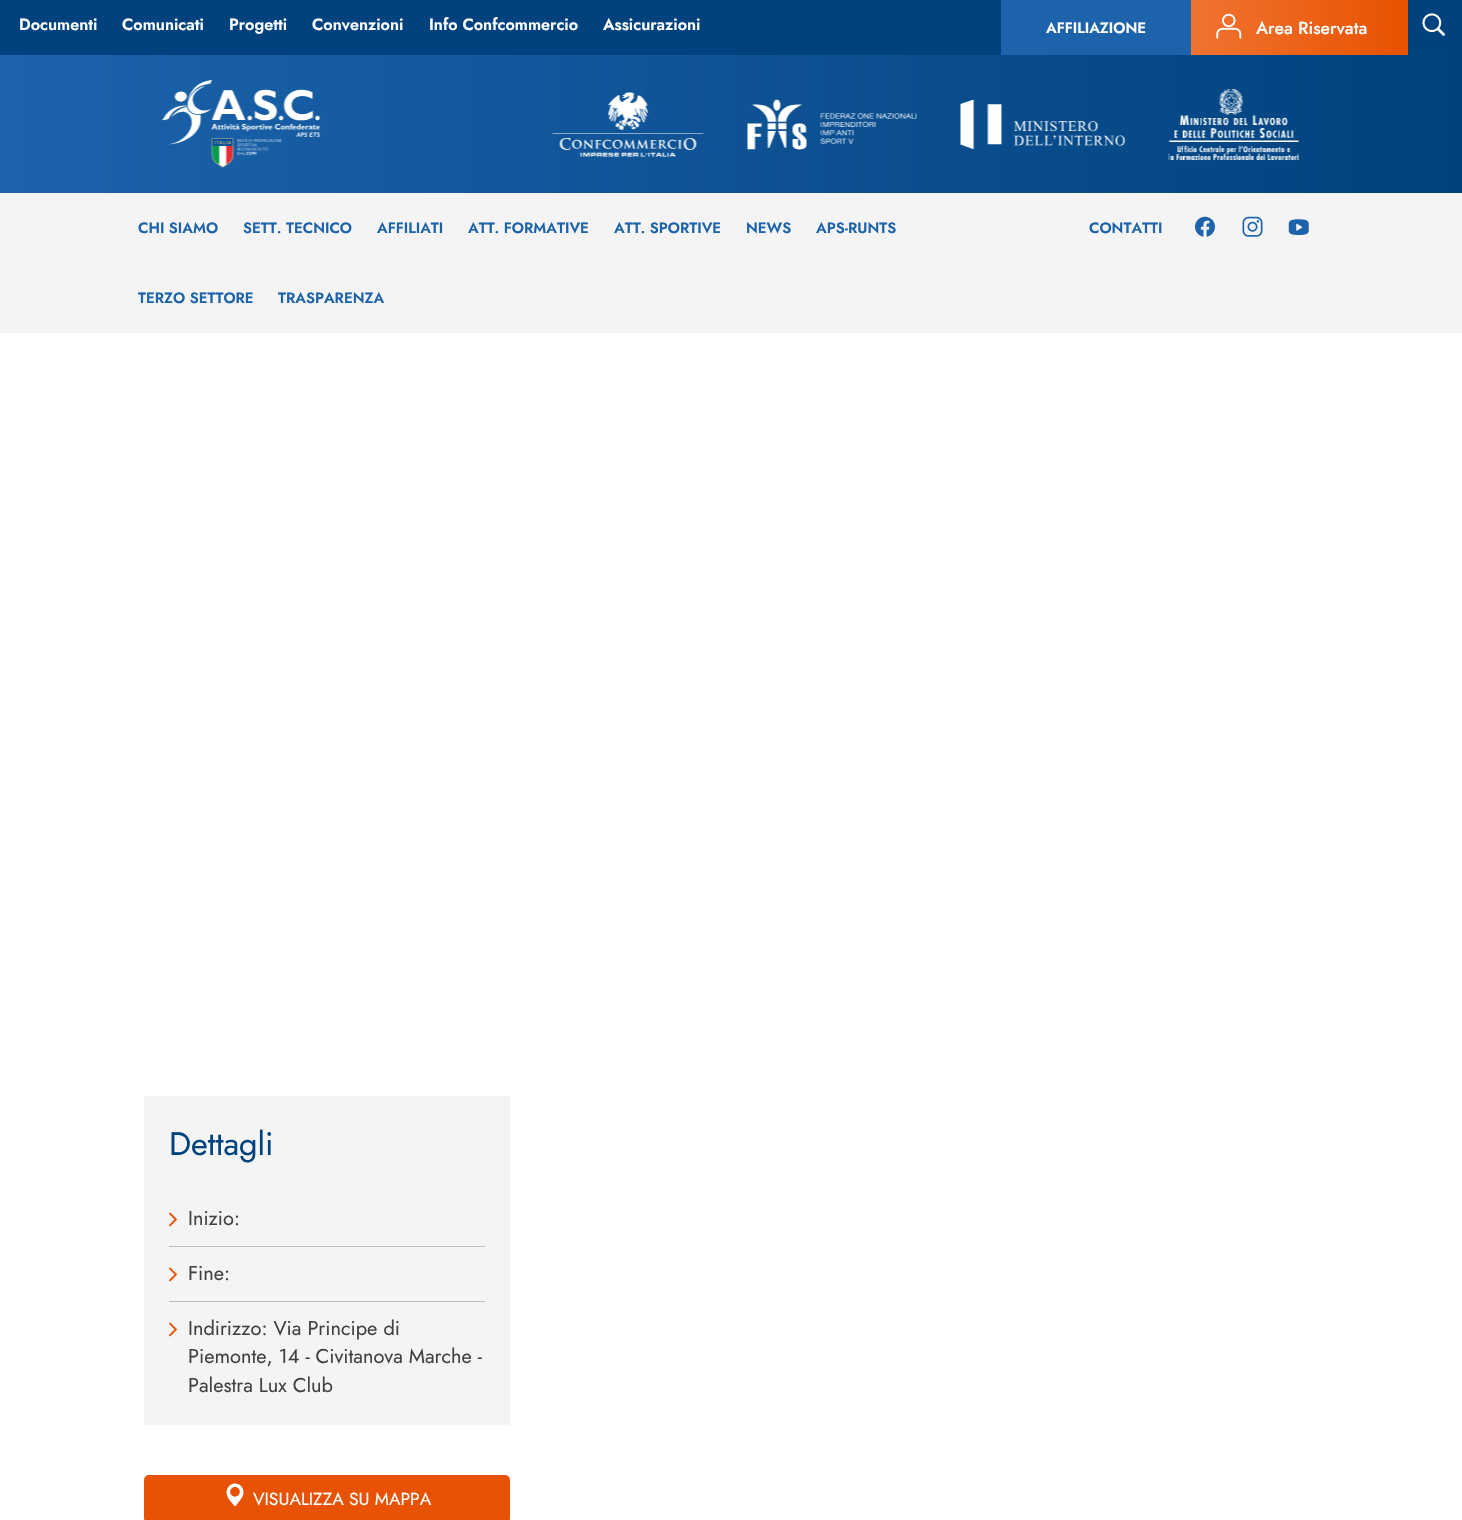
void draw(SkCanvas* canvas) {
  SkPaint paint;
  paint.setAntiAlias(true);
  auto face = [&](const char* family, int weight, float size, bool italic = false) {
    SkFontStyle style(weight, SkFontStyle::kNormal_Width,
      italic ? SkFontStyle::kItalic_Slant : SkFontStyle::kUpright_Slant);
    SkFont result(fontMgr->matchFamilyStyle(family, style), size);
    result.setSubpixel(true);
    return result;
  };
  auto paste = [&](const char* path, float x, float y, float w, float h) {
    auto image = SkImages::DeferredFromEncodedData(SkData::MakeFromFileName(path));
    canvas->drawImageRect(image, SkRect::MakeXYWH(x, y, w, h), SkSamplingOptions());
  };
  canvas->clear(0xffffffff);
  paint.setColor(0xff00427d);
  canvas->drawRect(SkRect::MakeXYWH(0, 0, 1462, 55), paint);
  paint.setColor(0xff1c63ac);
  canvas->drawRect(SkRect::MakeXYWH(1001, 0, 190, 55), paint);
  {
    const SkColor colors[] = {0xfff17331, 0xffe75200};
    const float stops[] = {0, 1};
    const SkPoint ends[] = {{1191, 28}, {1408, 27}};
    paint.setShader(SkGradientShader::MakeLinear(ends, colors, stops, 2, SkTileMode::kClamp));
    paint.setAlpha(255);
  }
  canvas->drawRect(SkRect::MakeXYWH(1191, 0, 217, 55), paint);
  paste("img/1.png", 1216, 13, 26, 26);
  paste("img/2.png", 1422, 13, 23, 23);
  {
    const SkColor colors[] = {0xff1c63ac, 0xff00427d};
    const float stops[] = {0, 1};
    const SkPoint ends[] = {{0, 124}, {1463, 124}};
    paint.setShader(SkGradientShader::MakeLinear(ends, colors, stops, 2, SkTileMode::kClamp));
    paint.setAlpha(255);
  }
  canvas->drawRect(SkRect::MakeXYWH(0, 55, 1462, 138), paint);
  paste("img/3.png", 162, 80, 159, 88);
  paste("img/4.png", 552, 92, 152, 65);
  paste("img/5.png", 747, 99, 170, 51);
  paste("img/6.png", 960, 99, 166, 50);
  paste("img/7.png", 1168, 89, 131, 72);
  paint.setShader(nullptr);
  paint.setColor(0xfff4f4f4);
  canvas->drawRect(SkRect::MakeXYWH(0, 193, 1462, 140), paint);
  paste("img/8.png", 1195, 216, 20, 21);
  paste("img/9.png", 1242, 216, 21, 21);
  paste("img/10.png", 1288, 219, 21, 17);
  canvas->drawRect(SkRect::MakeXYWH(144, 1096, 366, 329), paint);
  paint.setColor(0xffbcbcbc);
  canvas->drawRect(SkRect::MakeXYWH(169, 1246, 316, 1), paint);
  paste("img/11.png", 169, 1212, 8, 15);
  canvas->drawRect(SkRect::MakeXYWH(169, 1301, 316, 1), paint);
  paste("img/11.png", 169, 1267, 8, 15);
  paste("img/11.png", 169, 1322, 8, 15);
  paint.setColor(0xffe75204);
  canvas->drawRoundRect(SkRect::MakeXYWH(144, 1475, 366, 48), 5, 5, paint);
  paste("img/12.png", 226, 1483, 18, 24);
  auto f0 = face("Jost", 600, 16.25f);
  paint.setColor(0xffffffff);
  {
    const struct { const char* s; float x, y; } items[] = {
      {"Documenti", 19, 30},
      {"Comunicati", 122, 30},
      {"Progetti", 229, 30},
      {"Convenzioni", 312, 30},
      {"Info Confcommercio", 429, 30},
      {"Assicurazioni", 603, 30},
    };
    for (auto [s, x, y] : items) {
      canvas->drawString(s, x, y, f0, paint);
    }
  }
  auto f1 = face("Jost", 600, 15);
  canvas->drawString("AFFILIAZIONE", 1046, 33, f1, paint);
  auto f2 = face("Jost", 500, 17.5f);
  canvas->drawString("Area Riservata", 1256, 34, f2, paint);
  paint.setColor(0xff1c63ac);
  {
    const struct { const char* s; float x, y; } items[] = {
      {"CHI SIAMO", 138, 233},
      {"SETT. TECNICO", 243, 233},
      {"AFFILIATI", 377, 233},
      {"ATT. FORMATIVE", 468, 233},
      {"ATT. SPORTIVE", 614, 233},
      {"NEWS", 746, 233},
      {"APS-RUNTS", 816, 233},
      {"TERZO SETTORE", 138, 303},
      {"TRASPARENZA", 278, 303},
      {"CONTATTI", 1089, 233},
    };
    for (auto [s, x, y] : items) {
      canvas->drawString(s, x, y, f1, paint);
    }
  }
  auto f3 = face("Jost", 400, 32.5f);
  paint.setColor(0xff00427d);
  canvas->drawString("Dettagli", 169, 1155, f3, paint);
  auto f4 = face("Jost", 400, 20);
  paint.setColor(0xff414141);
  {
    const struct { const char* s; float x, y; } items[] = {
      {"Inizio:", 188, 1225},
      {"Fine:", 188, 1280},
      {"Indirizzo: Via Principe di", 188, 1335},
      {"Piemonte, 14 - Civitanova Marche -", 188, 1363},
      {"Palestra Lux Club", 188, 1392},
    };
    for (auto [s, x, y] : items) {
      canvas->drawString(s, x, y, f4, paint);
    }
  }
  auto f5 = face("Jost", 400, 17.5f);
  paint.setColor(0xffffffff);
  canvas->drawString("VISUALIZZA SU MAPPA", 253, 1505, f5, paint);
}
